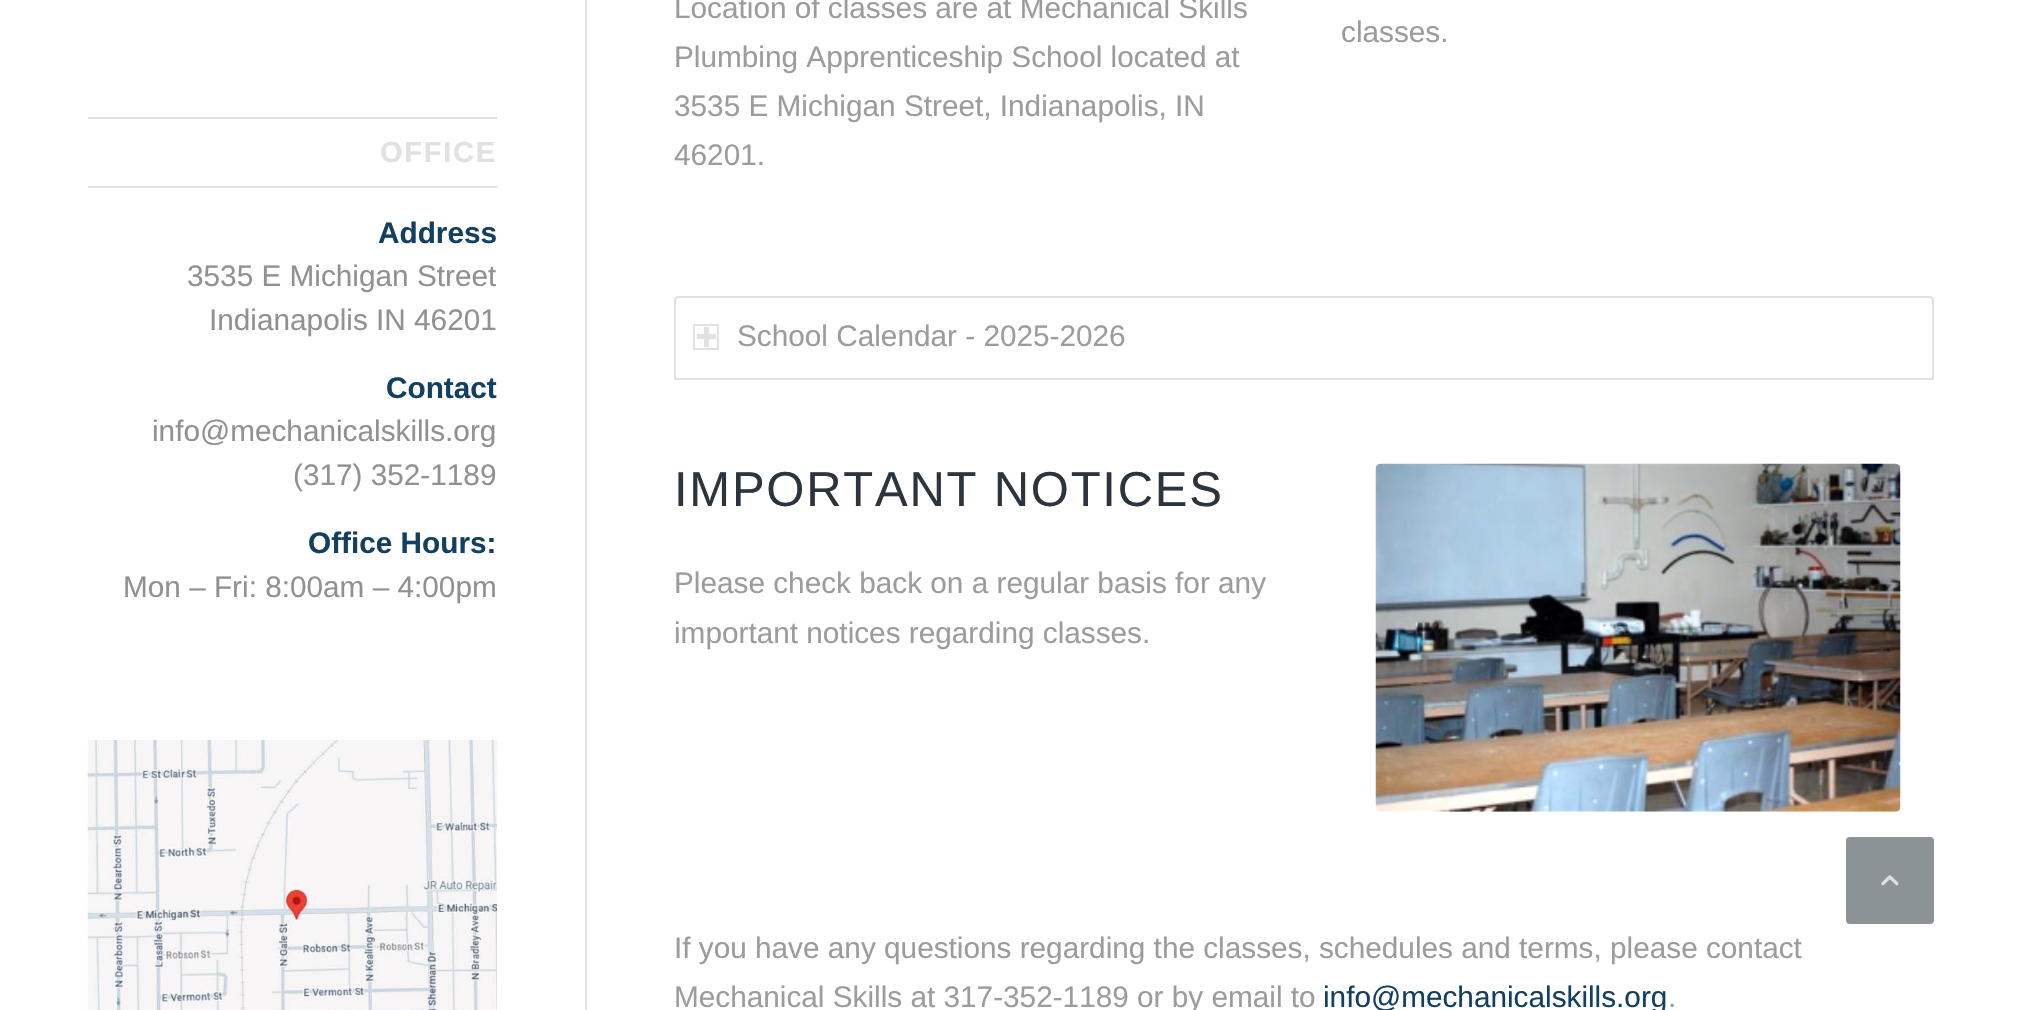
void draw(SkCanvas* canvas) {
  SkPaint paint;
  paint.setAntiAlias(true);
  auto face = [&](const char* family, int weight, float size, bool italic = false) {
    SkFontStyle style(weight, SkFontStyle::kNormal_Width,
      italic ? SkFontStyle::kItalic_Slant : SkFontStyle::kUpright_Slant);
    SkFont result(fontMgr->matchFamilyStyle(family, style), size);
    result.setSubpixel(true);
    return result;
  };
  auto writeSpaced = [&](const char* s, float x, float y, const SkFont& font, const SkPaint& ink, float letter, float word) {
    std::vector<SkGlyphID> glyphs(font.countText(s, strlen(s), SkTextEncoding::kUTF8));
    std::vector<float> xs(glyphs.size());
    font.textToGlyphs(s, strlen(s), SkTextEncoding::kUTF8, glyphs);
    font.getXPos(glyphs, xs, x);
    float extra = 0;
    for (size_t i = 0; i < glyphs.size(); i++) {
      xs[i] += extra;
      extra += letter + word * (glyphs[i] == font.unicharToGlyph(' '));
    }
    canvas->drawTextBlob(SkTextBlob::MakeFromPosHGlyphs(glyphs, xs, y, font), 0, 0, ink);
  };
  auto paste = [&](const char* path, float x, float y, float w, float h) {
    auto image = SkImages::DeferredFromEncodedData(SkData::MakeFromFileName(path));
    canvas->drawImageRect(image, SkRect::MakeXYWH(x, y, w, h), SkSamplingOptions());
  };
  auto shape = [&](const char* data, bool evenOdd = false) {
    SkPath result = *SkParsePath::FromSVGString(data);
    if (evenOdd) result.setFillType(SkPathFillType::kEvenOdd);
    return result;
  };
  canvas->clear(0xffffffff);
  paint.setColor(0xffe1e1e1);
  canvas->drawRect(SkRect::MakeXYWH(88, 117, 409, 2), paint);
  canvas->drawRect(SkRect::MakeXYWH(88, 186, 409, 2), paint);
  paste("img/1.png", 87, 740, 410, 270);
  canvas->drawRect(SkRect::MakeXYWH(585, 0, 2, 1010), paint);
  paint.setStroke(true);
  paint.setStrokeWidth(2);
  canvas->drawPath(shape("M678 297H1930C1931.5 297 1933 298.5 1933 300V379H675V300C675 298.5 676.5 297 678 297Z"), paint);
  canvas->drawRect(SkRect::MakeXYWH(694, 325, 24, 24), paint);
  paint.setStroke(false);
  canvas->drawRect(SkRect::MakeXYWH(704, 327, 5, 20), paint);
  canvas->drawRect(SkRect::MakeXYWH(697, 334, 19, 5), paint);
  paste("img/2.png", 1375, 463, 526, 349);
  paint.setColor(0xff8c9397);
  canvas->drawRoundRect(SkRect::MakeXYWH(1847, 838, 86, 85), 3, 3, paint);
  paint.setStroke(true);
  canvas->drawRoundRect(SkRect::MakeXYWH(1847, 838, 86, 85), 3, 3, paint);
  paste("img/3.png", 1881, 875, 18, 11);
  auto f0 = face("Liberation Sans", 700, 29);
  paint.setStroke(false);
  paint.setColor(0xffe1e1e1);
  writeSpaced("OFFICE", 380, 162, f0, paint, 1.75f, 0);
  auto f1 = face("Liberation Sans", 700, 29.75f);
  paint.setColor(0xff133f60);
  canvas->drawString("Address", 378, 243, f1, paint);
  auto f2 = face("Liberation Sans", 400, 29.75f);
  paint.setColor(0xff919191);
  canvas->drawString("3535 E Michigan Street", 187, 286, f2, paint);
  canvas->drawString("Indianapolis IN 46201", 209, 330, f2, paint);
  paint.setColor(0xff133f60);
  canvas->drawString("Contact", 386, 398, f1, paint);
  paint.setColor(0xff919191);
  canvas->drawString("info@mechanicalskills.org", 152, 441, f2, paint);
  canvas->drawString("(317) 352-1189", 293, 485, f2, paint);
  paint.setColor(0xff133f60);
  canvas->drawString("Office Hours:", 308, 553, f1, paint);
  paint.setColor(0xff919191);
  canvas->drawString("Mon – Fri: 8:00am – 4:00pm", 123, 597, f2, paint);
  paint.setColor(0xff9c9c9c);
  {
    const struct { const char* s; float x, y; } items[] = {
      {"Location of classes are at Mechanical Skills", 674, 18},
      {"Plumbing Apprenticeship School located at", 674, 67},
      {"3535 E Michigan Street, Indianapolis, IN", 674, 116},
      {"46201.", 674, 165},
      {"classes.", 1341, 42},
      {"School Calendar - 2025-2026", 737, 346},
    };
    for (auto [s, x, y] : items) {
      canvas->drawString(s, x, y, f2, paint);
    }
  }
  auto f3 = face("Liberation Sans", 400, 49);
  paint.setColor(0xff2c353d);
  writeSpaced("IMPORTANT NOTICES", 674, 506, f3, paint, 1.75f, 0);
  paint.setColor(0xff9c9c9c);
  {
    const struct { const char* s; float x, y; } items[] = {
      {"Please check back on a regular basis for any", 674, 593},
      {"important notices regarding classes.", 674, 643},
      {"If you have any questions regarding the classes, schedules and terms, please contact", 674, 958},
      {"Mechanical Skills at 317-352-1189 or by email to", 674, 1007},
    };
    for (auto [s, x, y] : items) {
      canvas->drawString(s, x, y, f2, paint);
    }
  }
  paint.setColor(0xff133f60);
  canvas->drawString("info@mechanicalskills.org", 1323, 1007, f2, paint);
  paint.setColor(0xff9c9c9c);
  canvas->drawString(".", 1668, 1007, f2, paint);
}
